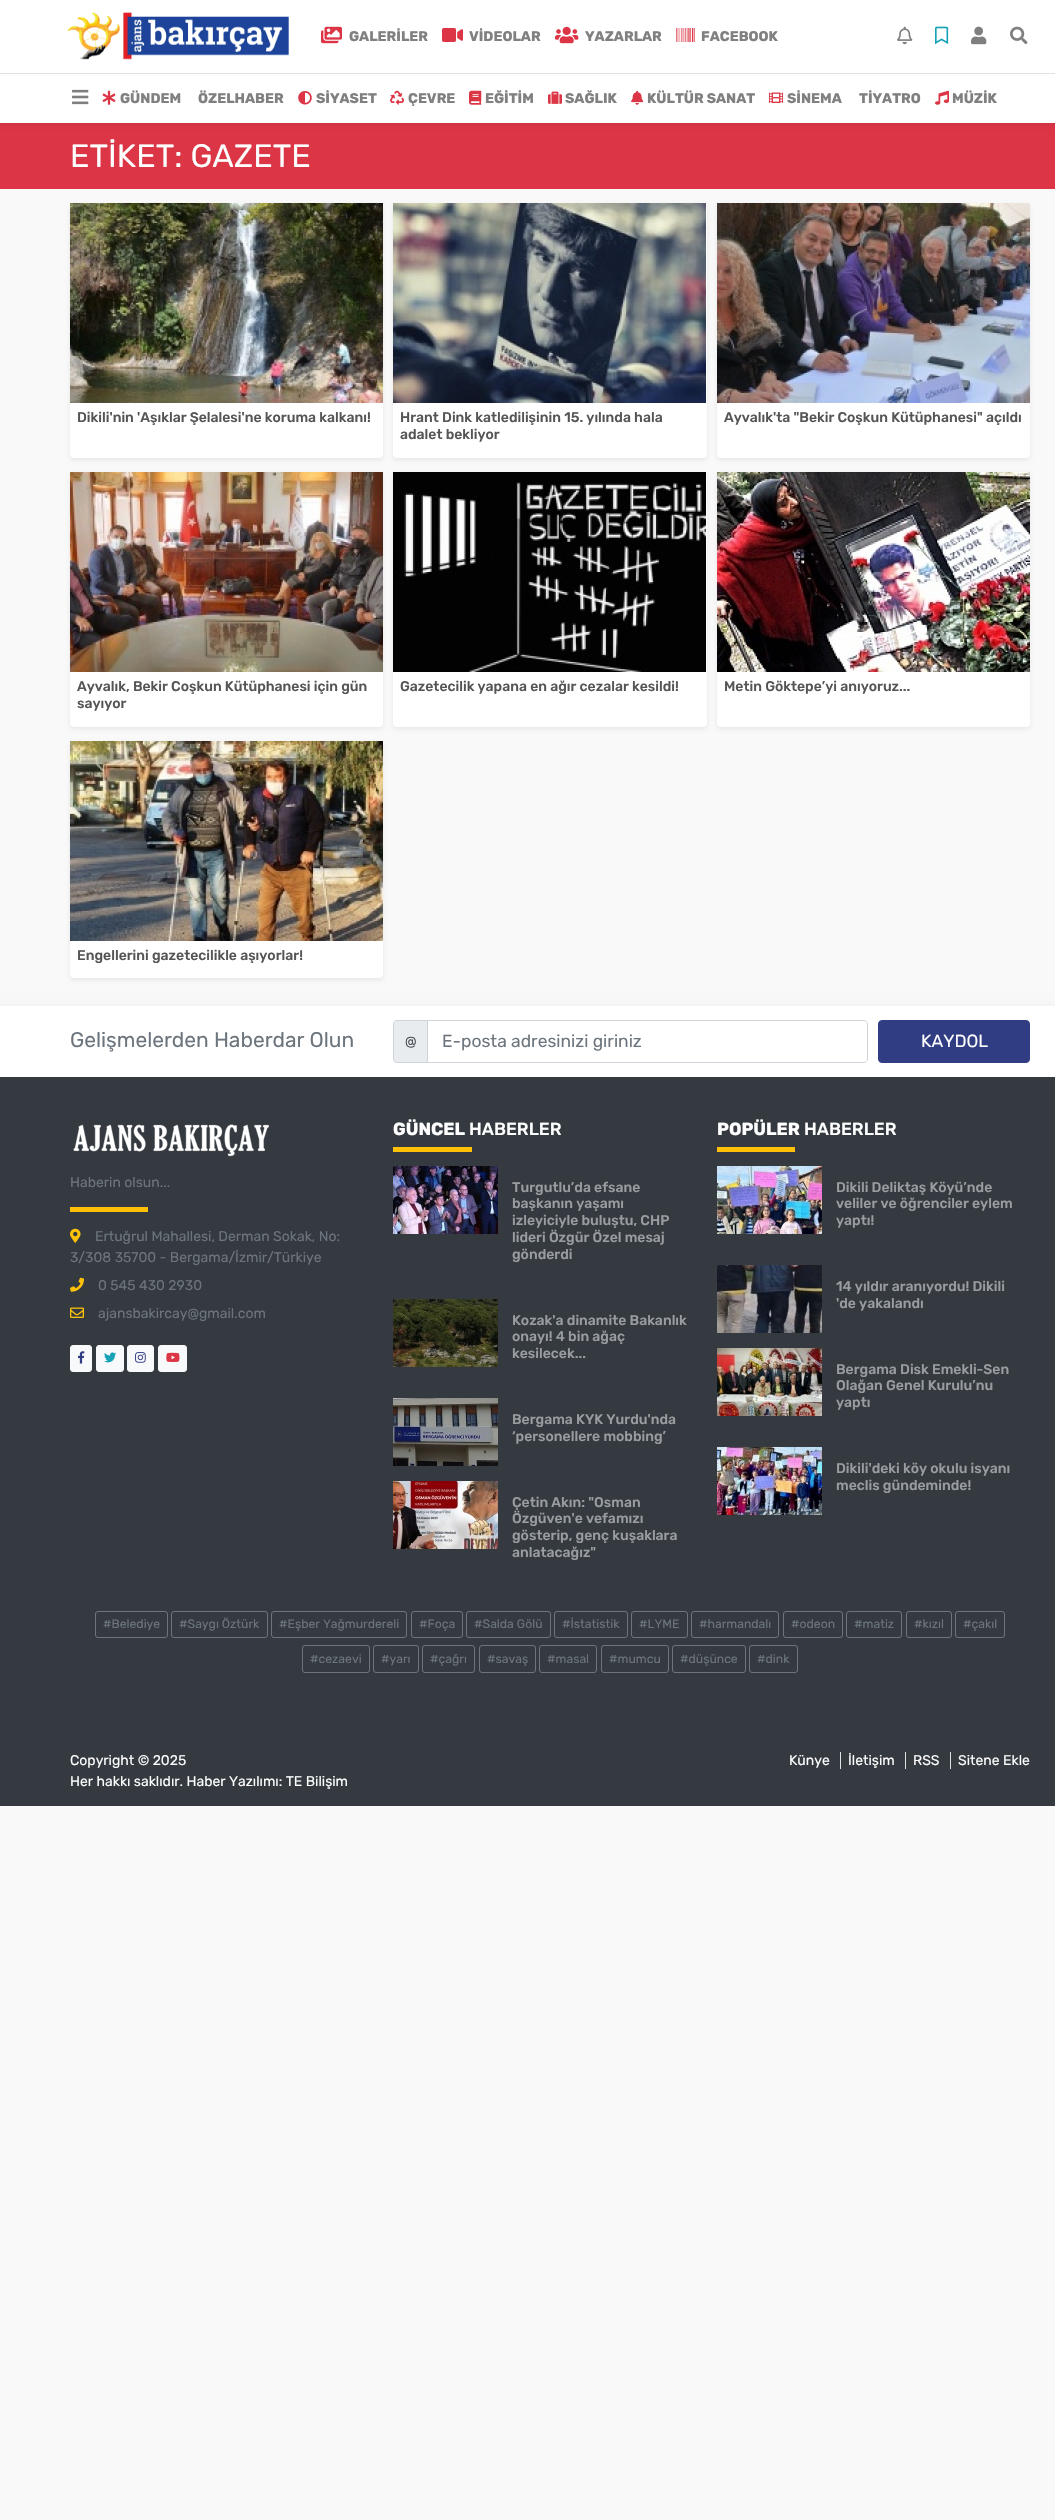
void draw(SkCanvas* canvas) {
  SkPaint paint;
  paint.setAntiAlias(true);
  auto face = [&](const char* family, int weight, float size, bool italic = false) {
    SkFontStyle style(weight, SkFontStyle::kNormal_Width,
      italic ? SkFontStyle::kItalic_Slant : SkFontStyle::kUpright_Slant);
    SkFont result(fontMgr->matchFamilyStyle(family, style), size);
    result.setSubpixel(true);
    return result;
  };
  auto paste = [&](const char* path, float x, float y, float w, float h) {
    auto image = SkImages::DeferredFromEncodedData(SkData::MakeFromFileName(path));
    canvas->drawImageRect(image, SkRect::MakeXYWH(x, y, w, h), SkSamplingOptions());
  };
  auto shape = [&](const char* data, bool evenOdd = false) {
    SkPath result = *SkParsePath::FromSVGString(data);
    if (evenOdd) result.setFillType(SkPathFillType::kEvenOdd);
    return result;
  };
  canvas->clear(0xfff9f9f9);
  paint.setColor(0xffdc3545);
  canvas->drawRect(SkRect::MakeXYWH(0, 123, 1055, 66), paint);
  paint.setColor(0x12000000);
  paint.setMaskFilter(SkMaskFilter::MakeBlur(kNormal_SkBlurStyle, 2));
  canvas->drawRect(SkRect::MakeXYWH(0, 2, 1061, 123), paint);
  paint.setMaskFilter(nullptr);
  paint.setColor(0xffffffff);
  canvas->drawRect(SkRect::MakeXYWH(0, 0, 1055, 123), paint);
  paint.setColor(0xffdee2e6);
  canvas->drawRect(SkRect::MakeXYWH(0, 73, 1055, 1), paint);
  paste("img/1.png", 67, 12, 222, 48);
  paste("img/2.png", 321, 26, 21, 18);
  paste("img/3.png", 442, 28, 21, 14);
  paste("img/4.png", 555, 26, 24, 18);
  paste("img/5.png", 676, 28, 19, 14);
  paste("img/6.png", 897, 26, 16, 19);
  paste("img/7.png", 935, 26, 14, 19);
  paste("img/8.png", 971, 26, 16, 19);
  paste("img/9.png", 1010, 26, 18, 19);
  paste("img/10.png", 72, 89, 17, 16);
  paste("img/11.png", 102, 90, 14, 15);
  paste("img/12.png", 298, 91, 14, 14);
  paste("img/13.png", 390, 90, 14, 15);
  paste("img/14.png", 469, 90, 13, 15);
  paste("img/15.png", 548, 91, 14, 13);
  paste("img/16.png", 631, 90, 13, 15);
  paste("img/17.png", 769, 92, 14, 11);
  paste("img/18.png", 935, 90, 14, 15);
  paint.setColor(0x12000000);
  paint.setMaskFilter(SkMaskFilter::MakeBlur(kNormal_SkBlurStyle, 2));
  canvas->drawRoundRect(SkRect::MakeXYWH(70, 205, 313, 255), 4, 4, paint);
  paint.setMaskFilter(nullptr);
  paint.setColor(0xffffffff);
  canvas->drawRoundRect(SkRect::MakeXYWH(70, 203, 313, 255), 4, 4, paint);
  paste("img/19.png", 70, 203, 313, 200);
  paint.setColor(0x12000000);
  paint.setMaskFilter(SkMaskFilter::MakeBlur(kNormal_SkBlurStyle, 2));
  canvas->drawRoundRect(SkRect::MakeXYWH(393, 205, 314, 255), 4, 4, paint);
  paint.setMaskFilter(nullptr);
  paint.setColor(0xffffffff);
  canvas->drawRoundRect(SkRect::MakeXYWH(393, 203, 314, 255), 4, 4, paint);
  paste("img/20.png", 393, 203, 313, 200);
  paint.setColor(0x12000000);
  paint.setMaskFilter(SkMaskFilter::MakeBlur(kNormal_SkBlurStyle, 2));
  canvas->drawRoundRect(SkRect::MakeXYWH(717, 205, 313, 255), 4, 4, paint);
  paint.setMaskFilter(nullptr);
  paint.setColor(0xffffffff);
  canvas->drawRoundRect(SkRect::MakeXYWH(717, 203, 313, 255), 4, 4, paint);
  paste("img/21.png", 717, 203, 313, 200);
  paint.setColor(0x12000000);
  paint.setMaskFilter(SkMaskFilter::MakeBlur(kNormal_SkBlurStyle, 2));
  canvas->drawRoundRect(SkRect::MakeXYWH(70, 474, 313, 255), 4, 4, paint);
  paint.setMaskFilter(nullptr);
  paint.setColor(0xffffffff);
  canvas->drawRoundRect(SkRect::MakeXYWH(70, 472, 313, 255), 4, 4, paint);
  paste("img/22.png", 70, 472, 313, 200);
  paint.setColor(0x12000000);
  paint.setMaskFilter(SkMaskFilter::MakeBlur(kNormal_SkBlurStyle, 2));
  canvas->drawRoundRect(SkRect::MakeXYWH(393, 474, 314, 255), 4, 4, paint);
  paint.setMaskFilter(nullptr);
  paint.setColor(0xffffffff);
  canvas->drawRoundRect(SkRect::MakeXYWH(393, 472, 314, 255), 4, 4, paint);
  paste("img/23.png", 393, 472, 313, 200);
  paint.setColor(0x12000000);
  paint.setMaskFilter(SkMaskFilter::MakeBlur(kNormal_SkBlurStyle, 2));
  canvas->drawRoundRect(SkRect::MakeXYWH(717, 474, 313, 255), 4, 4, paint);
  paint.setMaskFilter(nullptr);
  paint.setColor(0xffffffff);
  canvas->drawRoundRect(SkRect::MakeXYWH(717, 472, 313, 255), 4, 4, paint);
  paste("img/24.png", 717, 472, 313, 200);
  paint.setColor(0x12000000);
  paint.setMaskFilter(SkMaskFilter::MakeBlur(kNormal_SkBlurStyle, 2));
  canvas->drawRoundRect(SkRect::MakeXYWH(70, 743, 313, 237), 4, 4, paint);
  paint.setMaskFilter(nullptr);
  paint.setColor(0xffffffff);
  canvas->drawRoundRect(SkRect::MakeXYWH(70, 741, 313, 237), 4, 4, paint);
  paste("img/25.png", 70, 741, 313, 200);
  paint.setColor(0x26000000);
  paint.setMaskFilter(SkMaskFilter::MakeBlur(kNormal_SkBlurStyle, 7));
  canvas->drawRect(SkRect::MakeXYWH(0, 1013, 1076, 71), paint);
  paint.setMaskFilter(nullptr);
  paint.setColor(0xffffffff);
  canvas->drawRect(SkRect::MakeXYWH(0, 1006, 1055, 71), paint);
  paint.setColor(0xffe9ecef);
  canvas->drawPath(shape("M397 1020.5H427.5V1062.5H397C395 1062.5 393.5 1061 393.5 1059V1024C393.5 1022 395 1020.5 397 1020.5Z"), paint);
  paint.setStroke(true);
  paint.setStrokeWidth(1);
  paint.setColor(0xffced4da);
  canvas->drawPath(shape("M397 1020.5H427.5V1062.5H397C395 1062.5 393.5 1061 393.5 1059V1024C393.5 1022 395 1020.5 397 1020.5Z"), paint);
  canvas->drawPath(shape("M427.5 1020.5H864C866 1020.5 867.5 1022 867.5 1024V1059C867.5 1061 866 1062.5 864 1062.5H427.5Z"), paint);
  paint.setStroke(false);
  paint.setColor(0xff303d83);
  canvas->drawRoundRect(SkRect::MakeXYWH(878.5f, 1020.5f, 151, 42), 3.5f, 3.5f, paint);
  paint.setStroke(true);
  canvas->drawRoundRect(SkRect::MakeXYWH(878.5f, 1020.5f, 151, 42), 3.5f, 3.5f, paint);
  paint.setStroke(false);
  paint.setColor(0xff343a40);
  canvas->drawRect(SkRect::MakeXYWH(0, 1077, 1055, 729), paint);
  paste("img/26.png", 73, 1124, 196, 33);
  paint.setColor(0xffffc107);
  canvas->drawRect(SkRect::MakeXYWH(70, 1207, 78, 5), paint);
  paste("img/27.png", 70, 1228, 11, 15);
  paste("img/28.png", 70, 1277, 14, 15);
  paste("img/29.png", 70, 1307, 14, 11);
  paint.setColor(0xfff8f9fa);
  canvas->drawRoundRect(SkRect::MakeXYWH(70.5f, 1345.5f, 21, 26), 2.5f, 2.5f, paint);
  paint.setStroke(true);
  canvas->drawRoundRect(SkRect::MakeXYWH(70.5f, 1345.5f, 21, 26), 2.5f, 2.5f, paint);
  paste("img/30.png", 78, 1351, 7, 13);
  paint.setStroke(false);
  canvas->drawRoundRect(SkRect::MakeXYWH(96.5f, 1345.5f, 27, 26), 2.5f, 2.5f, paint);
  paint.setStroke(true);
  canvas->drawRoundRect(SkRect::MakeXYWH(96.5f, 1345.5f, 27, 26), 2.5f, 2.5f, paint);
  paste("img/31.png", 104, 1352, 13, 11);
  paint.setStroke(false);
  canvas->drawRoundRect(SkRect::MakeXYWH(127.5f, 1345.5f, 26, 26), 2.5f, 2.5f, paint);
  paint.setStroke(true);
  canvas->drawRoundRect(SkRect::MakeXYWH(127.5f, 1345.5f, 26, 26), 2.5f, 2.5f, paint);
  paste("img/32.png", 135, 1352, 11, 11);
  paint.setStroke(false);
  canvas->drawRoundRect(SkRect::MakeXYWH(158.5f, 1345.5f, 28, 26), 2.5f, 2.5f, paint);
  paint.setStroke(true);
  canvas->drawRoundRect(SkRect::MakeXYWH(158.5f, 1345.5f, 28, 26), 2.5f, 2.5f, paint);
  paste("img/33.png", 166, 1352, 14, 10);
  paint.setStroke(false);
  paint.setColor(0xffffc107);
  canvas->drawRect(SkRect::MakeXYWH(393, 1147, 79, 5), paint);
  paste("img/34.png", 393, 1166, 105, 68);
  paste("img/35.png", 393, 1299, 105, 68);
  paste("img/36.png", 393, 1398, 105, 68);
  paste("img/37.png", 393, 1481, 105, 68);
  canvas->drawRect(SkRect::MakeXYWH(717, 1147, 78, 5), paint);
  paste("img/38.png", 717, 1166, 105, 68);
  paste("img/39.png", 717, 1265, 105, 68);
  paste("img/40.png", 717, 1348, 105, 68);
  paste("img/41.png", 717, 1447, 105, 68);
  paint.setStroke(true);
  paint.setColor(0xff6c757d);
  canvas->drawRoundRect(SkRect::MakeXYWH(95.5f, 1611.5f, 72, 26), 2.5f, 2.5f, paint);
  canvas->drawRoundRect(SkRect::MakeXYWH(171.5f, 1611.5f, 96, 26), 2.5f, 2.5f, paint);
  canvas->drawRoundRect(SkRect::MakeXYWH(271.5f, 1611.5f, 135, 26), 2.5f, 2.5f, paint);
  canvas->drawRoundRect(SkRect::MakeXYWH(411.5f, 1611.5f, 51, 26), 2.5f, 2.5f, paint);
  canvas->drawRoundRect(SkRect::MakeXYWH(466.5f, 1611.5f, 84, 26), 2.5f, 2.5f, paint);
  canvas->drawRoundRect(SkRect::MakeXYWH(554.5f, 1611.5f, 73, 26), 2.5f, 2.5f, paint);
  canvas->drawRoundRect(SkRect::MakeXYWH(631.5f, 1611.5f, 56, 26), 2.5f, 2.5f, paint);
  canvas->drawRoundRect(SkRect::MakeXYWH(691.5f, 1611.5f, 87, 26), 2.5f, 2.5f, paint);
  canvas->drawRoundRect(SkRect::MakeXYWH(783.5f, 1611.5f, 59, 26), 2.5f, 2.5f, paint);
  canvas->drawRoundRect(SkRect::MakeXYWH(846.5f, 1611.5f, 55, 26), 2.5f, 2.5f, paint);
  canvas->drawRoundRect(SkRect::MakeXYWH(906.5f, 1611.5f, 45, 26), 2.5f, 2.5f, paint);
  canvas->drawRoundRect(SkRect::MakeXYWH(955.5f, 1611.5f, 49, 26), 2.5f, 2.5f, paint);
  canvas->drawRoundRect(SkRect::MakeXYWH(302.5f, 1645.5f, 67, 27), 2.5f, 2.5f, paint);
  canvas->drawRoundRect(SkRect::MakeXYWH(373.5f, 1645.5f, 45, 27), 2.5f, 2.5f, paint);
  canvas->drawRoundRect(SkRect::MakeXYWH(422.5f, 1645.5f, 52, 27), 2.5f, 2.5f, paint);
  canvas->drawRoundRect(SkRect::MakeXYWH(479.5f, 1645.5f, 56, 27), 2.5f, 2.5f, paint);
  canvas->drawRoundRect(SkRect::MakeXYWH(539.5f, 1645.5f, 57, 27), 2.5f, 2.5f, paint);
  canvas->drawRoundRect(SkRect::MakeXYWH(601.5f, 1645.5f, 67, 27), 2.5f, 2.5f, paint);
  canvas->drawRoundRect(SkRect::MakeXYWH(672.5f, 1645.5f, 73, 27), 2.5f, 2.5f, paint);
  canvas->drawRoundRect(SkRect::MakeXYWH(749.5f, 1645.5f, 48, 27), 2.5f, 2.5f, paint);
  paint.setStroke(false);
  {
    const struct { float x, y, w, h; SkColor color; } items[] = {
      {840, 1752, 1, 17, 0xffdee2e6},
      {905, 1752, 1, 17, 0xffdee2e6},
      {950, 1752, 1, 17, 0xffdee2e6},
    };
    for (auto [x, y, w, h, color] : items) {
      paint.setColor(color);
      canvas->drawRect(SkRect::MakeXYWH(x, y, w, h), paint);
    }
  }
  auto f0 = face("Rubik", 700, 14);
  paint.setColor(0xff808080);
  {
    const struct { const char* s; float x, y; } items[] = {
      {"GALERİLER", 349, 41},
      {"VİDEOLAR", 469, 41},
      {"YAZARLAR", 585, 41},
      {"FACEBOOK", 701, 41},
      {"GÜNDEM", 120, 103},
      {"ÖZELHABER", 198, 103},
      {"SİYASET", 316, 103},
      {"ÇEVRE", 408, 103},
      {"EĞİTİM", 485, 103},
      {"SAĞLIK", 565, 103},
      {"KÜLTÜR SANAT", 647, 103},
      {"SİNEMA", 787, 103},
      {"TİYATRO", 859, 103},
      {"MÜZİK", 952, 103},
    };
    for (auto [s, x, y] : items) {
      canvas->drawString(s, x, y, f0, paint);
    }
  }
  auto f1 = face("Rubik", 400, 32.25f);
  paint.setColor(0xffffffff);
  canvas->drawString("ETİKET: GAZETE", 70, 167, f1, paint);
  auto f2 = face("Rubik", 500, 14);
  paint.setColor(0xff555555);
  {
    const struct { const char* s; float x, y; } items[] = {
      {"Dikili'nin 'Aşıklar Şelalesi'ne koruma kalkanı!", 77, 422},
      {"Hrant Dink katledilişinin 15. yılında hala", 400, 422},
      {"adalet bekliyor", 400, 439},
      {"Ayvalık'ta \"Bekir Coşkun Kütüphanesi\" açıldı", 724, 422},
      {"Ayvalık, Bekir Coşkun Kütüphanesi için gün", 77, 691},
      {"sayıyor", 77, 708},
      {"Gazetecilik yapana en ağır cezalar kesildi!", 400, 691},
      {"Metin Göktepe’yi anıyoruz...", 724, 691},
      {"Engellerini gazetecilikle aşıyorlar!", 77, 960},
    };
    for (auto [s, x, y] : items) {
      canvas->drawString(s, x, y, f2, paint);
    }
  }
  auto f3 = face("Rubik", 400, 21);
  paint.setColor(0xff6c757d);
  canvas->drawString("Gelişmelerden Haberdar Olun", 70, 1047, f3, paint);
  auto f4 = face("Rubik", 400, 14);
  paint.setColor(0xff495057);
  canvas->drawString("@", 405, 1046, f4, paint);
  auto f5 = face("Rubik", 400, 17.5f);
  paint.setColor(0xff6c757d);
  canvas->drawString("E-posta adresinizi giriniz", 442, 1047, f5, paint);
  paint.setColor(0xffffffff);
  canvas->drawString("KAYDOL", 921, 1047, f5, paint);
  paint.setColor(0xff6c757d);
  {
    const struct { const char* s; float x, y; } items[] = {
      {"Haberin olsun...", 70, 1187},
      {"Ertuğrul Mahallesi, Derman Sokak, No:", 95, 1241},
      {"3/308 35700 - Bergama/İzmir/Türkiye", 70, 1262},
      {"0 545 430 2930", 98, 1290},
      {"ajansbakircay@gmail.com", 98, 1318},
    };
    for (auto [s, x, y] : items) {
      canvas->drawString(s, x, y, f4, paint);
    }
  }
  auto f6 = face("Rubik", 700, 17.5f);
  paint.setColor(0xffffffff);
  canvas->drawString("GÜNCEL", 393, 1135, f6, paint);
  auto f7 = face("Rubik", 500, 17.5f);
  canvas->drawString("HABERLER", 469, 1135, f7, paint);
  paint.setColor(0xff9a9da0);
  {
    const struct { const char* s; float x, y; } items[] = {
      {"Turgutlu’da efsane", 512, 1192},
      {"başkanın yaşamı", 512, 1208},
      {"izleyiciyle buluştu, CHP", 512, 1225},
      {"lideri Özgür Özel mesaj", 512, 1242},
      {"gönderdi", 512, 1259},
      {"Kozak'a dinamite Bakanlık", 512, 1325},
      {"onayı! 4 bin ağaç", 512, 1341},
      {"kesilecek...", 512, 1358},
      {"Bergama KYK Yurdu'nda", 512, 1424},
      {"‘personellere mobbing’", 512, 1441},
      {"Çetin Akın: \"Osman", 512, 1507},
      {"Özgüven'e vefamızı", 512, 1523},
      {"gösterip, genç kuşaklara", 512, 1540},
      {"anlatacağız\"", 512, 1557},
    };
    for (auto [s, x, y] : items) {
      canvas->drawString(s, x, y, f2, paint);
    }
  }
  paint.setColor(0xffffffff);
  canvas->drawString("POPÜLER", 717, 1135, f6, paint);
  canvas->drawString("HABERLER", 804, 1135, f7, paint);
  paint.setColor(0xff9a9da0);
  {
    const struct { const char* s; float x, y; } items[] = {
      {"Dikili Deliktaş Köyü’nde", 836, 1192},
      {"veliler ve öğrenciler eylem", 836, 1208},
      {"yaptı!", 836, 1225},
      {"14 yıldır aranıyordu! Dikili", 836, 1291},
      {"'de yakalandı", 836, 1308},
      {"Bergama Disk Emekli-Sen", 836, 1374},
      {"Olağan Genel Kurulu’nu", 836, 1390},
      {"yaptı", 836, 1407},
      {"Dikili'deki köy okulu isyanı", 836, 1473},
      {"meclis gündeminde!", 836, 1490},
    };
    for (auto [s, x, y] : items) {
      canvas->drawString(s, x, y, f2, paint);
    }
  }
  auto f8 = face("Rubik", 400, 12.25f);
  paint.setColor(0xff6c757d);
  {
    const struct { const char* s; float x, y; } items[] = {
      {"#Belediye", 103, 1628},
      {"#Saygı Öztürk", 179, 1628},
      {"#Eşber Yağmurdereli", 279, 1628},
      {"#Foça", 419, 1628},
      {"#Salda Gölü", 474, 1628},
      {"#İstatistik", 562, 1628},
      {"#LYME", 639, 1628},
      {"#harmandalı", 699, 1628},
      {"#odeon", 791, 1628},
      {"#matiz", 854, 1628},
      {"#kızıl", 914, 1628},
      {"#çakıl", 963, 1628},
      {"#cezaevi", 310, 1663},
      {"#yarı", 381, 1663},
      {"#çağrı", 430, 1663},
      {"#savaş", 487, 1663},
      {"#masal", 547, 1663},
      {"#mumcu", 609, 1663},
      {"#düşünce", 680, 1663},
      {"#dink", 757, 1663},
    };
    for (auto [s, x, y] : items) {
      canvas->drawString(s, x, y, f8, paint);
    }
  }
  paint.setColor(0xffffffff);
  {
    const struct { const char* s; float x, y; } items[] = {
      {"Copyright © 2025", 70, 1765},
      {"Her hakkı saklıdır. Haber Yazılımı: TE Bilişim", 70, 1786},
      {"Künye", 789, 1765},
      {"İletişim", 848, 1765},
      {"RSS", 913, 1765},
      {"Sitene Ekle", 958, 1765},
    };
    for (auto [s, x, y] : items) {
      canvas->drawString(s, x, y, f4, paint);
    }
  }
}
